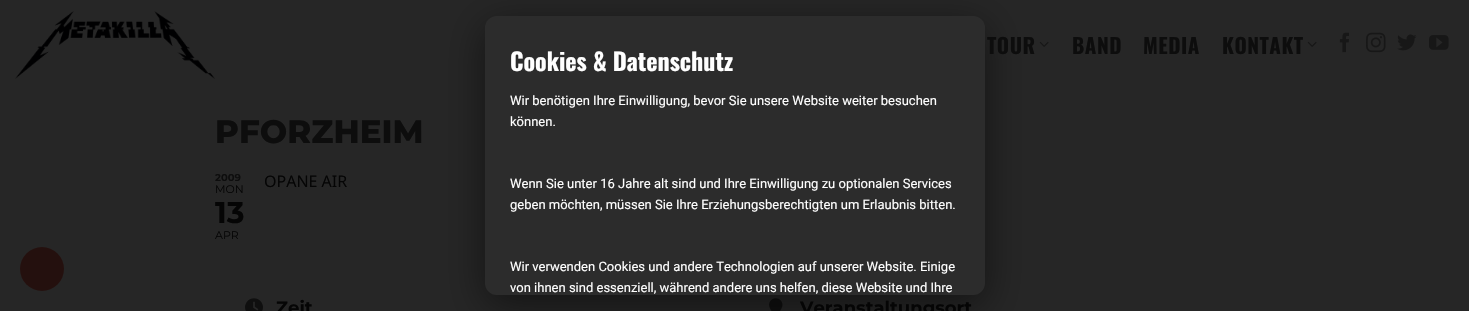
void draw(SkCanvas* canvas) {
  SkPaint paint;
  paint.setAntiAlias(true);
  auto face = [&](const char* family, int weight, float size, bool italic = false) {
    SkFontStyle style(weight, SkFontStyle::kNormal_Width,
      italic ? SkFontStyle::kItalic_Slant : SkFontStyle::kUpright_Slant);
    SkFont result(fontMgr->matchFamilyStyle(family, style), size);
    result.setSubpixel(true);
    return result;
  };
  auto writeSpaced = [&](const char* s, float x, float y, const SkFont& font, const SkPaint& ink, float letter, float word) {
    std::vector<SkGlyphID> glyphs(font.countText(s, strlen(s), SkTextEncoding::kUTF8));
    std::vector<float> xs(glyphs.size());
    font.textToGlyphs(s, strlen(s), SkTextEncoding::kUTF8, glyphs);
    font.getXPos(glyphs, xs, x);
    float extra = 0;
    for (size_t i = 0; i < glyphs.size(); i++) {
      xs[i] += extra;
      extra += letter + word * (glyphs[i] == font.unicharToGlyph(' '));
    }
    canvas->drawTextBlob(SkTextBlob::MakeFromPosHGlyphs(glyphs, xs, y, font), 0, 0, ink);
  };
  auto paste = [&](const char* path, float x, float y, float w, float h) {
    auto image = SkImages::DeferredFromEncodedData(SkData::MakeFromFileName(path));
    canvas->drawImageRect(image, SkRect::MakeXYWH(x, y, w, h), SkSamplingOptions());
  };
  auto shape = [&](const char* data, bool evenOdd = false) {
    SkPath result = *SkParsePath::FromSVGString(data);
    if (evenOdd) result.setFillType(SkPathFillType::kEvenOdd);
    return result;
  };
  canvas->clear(0xff262626);
  paste("img/1.png", 15, 11, 200, 68);
  paste("img/2.png", 1039, 41, 10, 6);
  paste("img/2.png", 1307, 41, 10, 6);
  paste("img/3.png", 1339, 32, 10, 21);
  paste("img/4.png", 1366, 32, 20, 21);
  paste("img/5.png", 1397, 34, 20, 17);
  paste("img/6.png", 1429, 35, 20, 15);
  paste("img/7.png", 245, 298, 18, 13);
  paste("img/8.png", 769, 298, 14, 13);
  paint.setColor(0xff24100e);
  canvas->drawCircle(42, 269, 22, paint);
  paint.setColor(0x80000000);
  paint.setMaskFilter(SkMaskFilter::MakeBlur(kNormal_SkBlurStyle, 20));
  canvas->drawRoundRect(SkRect::MakeXYWH(485, 26, 500, 279), 12, 12, paint);
  paint.setMaskFilter(nullptr);
  paint.setColor(0xff2c2c2c);
  canvas->drawRoundRect(SkRect::MakeXYWH(485, 16, 500, 279), 12, 12, paint);
  auto f0 = face("Oswald", 700, 21);
  paint.setColor(0xff0d0d0d);
  {
    const struct { const char* s; float x, y; } items[] = {
      {"TOUR", 987, 54},
      {"BAND", 1072, 54},
      {"MEDIA", 1143, 54},
      {"KONTAKT", 1222, 54},
    };
    for (auto [s, x, y] : items) {
      writeSpaced(s, x, y, f0, paint, 0.5f, 0);
    }
  }
  auto f1 = face("Montserrat", 800, 32.5f);
  canvas->drawString("PFORZHEIM", 215, 143, f1, paint);
  auto f2 = face("Montserrat", 700, 10);
  canvas->drawString("2009", 215, 181, f2, paint);
  auto f3 = face("Montserrat", 400, 11);
  paint.setColor(0xff050505);
  canvas->drawString("MON", 215, 193, f3, paint);
  canvas->save();
  canvas->clipPath(shape("M230 152H1240C1248.5 152 1255 158.5 1255 167V246C1255 254.5 1248.5 261 1240 261H230C221.5 261 215 254.5 215 246V167C215 158.5 221.5 152 230 152Z"), true);
  auto f4 = face("Montserrat", 700, 30);
  canvas->drawString("13", 215, 223, f4, paint);
  canvas->restore();
  canvas->drawString("APR", 215, 239, f3, paint);
  auto f5 = face("Noto Sans", 400, 16);
  canvas->drawString("OPANE AIR", 264, 187, f5, paint);
  auto f6 = face("Montserrat", 700, 18);
  canvas->drawString("Zeit", 276, 314, f6, paint);
  canvas->drawString("Veranstaltungsort", 800, 314, f6, paint);
  auto f7 = face("Oswald", 700, 24);
  paint.setColor(0xffffffff);
  canvas->drawString("Cookies & Datenschutz", 510, 71, f7, paint);
  auto f8 = face("Roboto", 400, 13);
  {
    const struct { const char* s; float x, y; } items[] = {
      {"Wir benötigen Ihre Einwilligung, bevor Sie unsere Website weiter besuchen", 510, 105},
      {"können.", 510, 126},
      {"Wenn Sie unter 16 Jahre alt sind und Ihre Einwilligung zu optionalen Services", 510, 188},
      {"geben möchten, müssen Sie Ihre Erziehungsberechtigten um Erlaubnis bitten.", 510, 209},
      {"Wir verwenden Cookies und andere Technologien auf unserer Website. Einige", 510, 271},
      {"von ihnen sind essenziell, während andere uns helfen, diese Website und Ihre", 510, 292},
    };
    for (auto [s, x, y] : items) {
      canvas->drawString(s, x, y, f8, paint);
    }
  }
}
